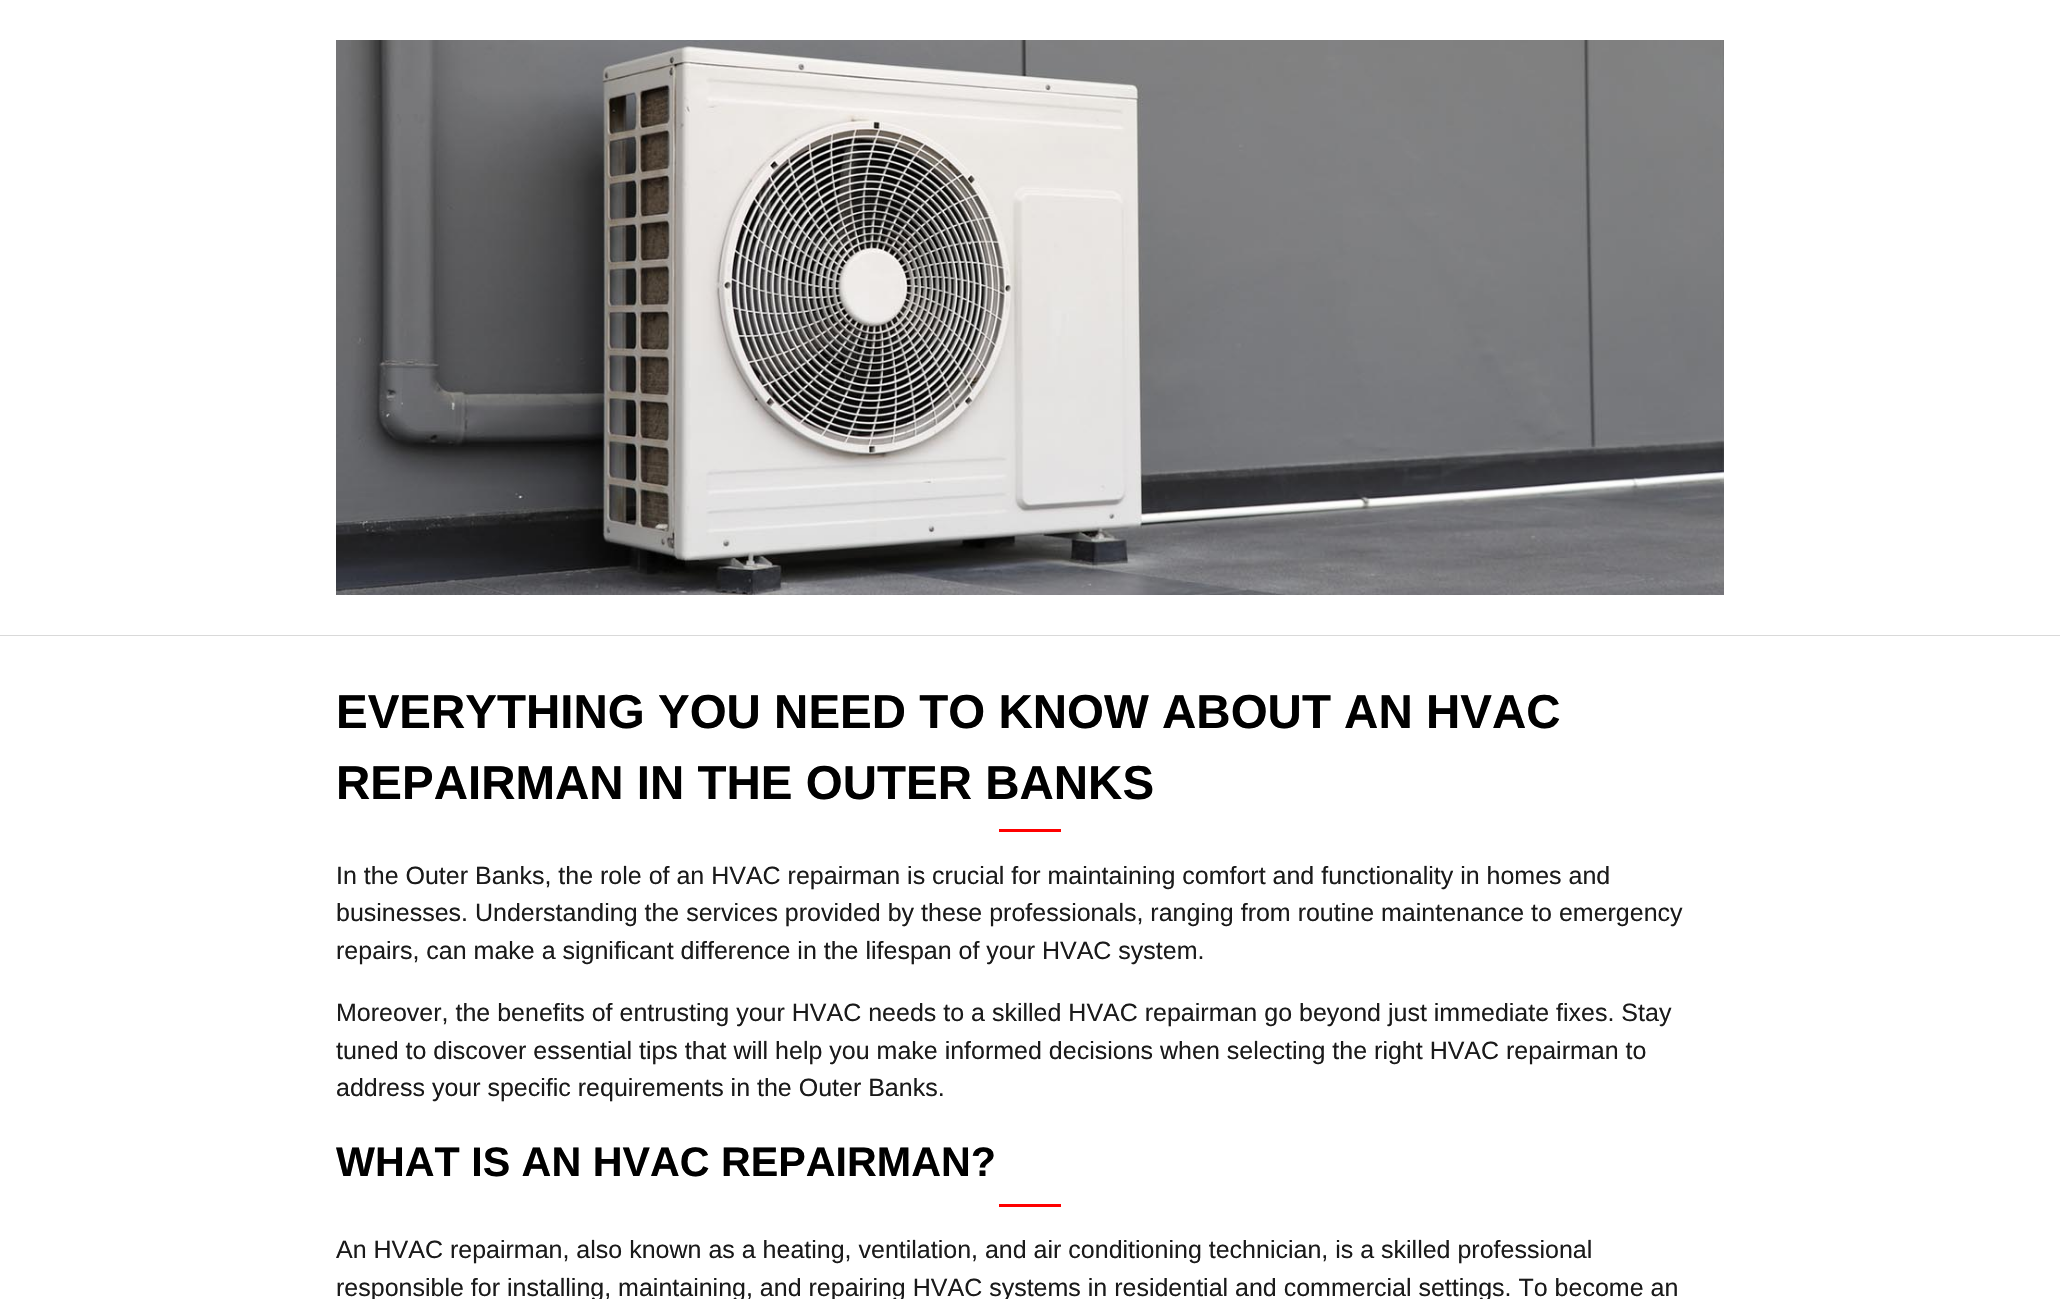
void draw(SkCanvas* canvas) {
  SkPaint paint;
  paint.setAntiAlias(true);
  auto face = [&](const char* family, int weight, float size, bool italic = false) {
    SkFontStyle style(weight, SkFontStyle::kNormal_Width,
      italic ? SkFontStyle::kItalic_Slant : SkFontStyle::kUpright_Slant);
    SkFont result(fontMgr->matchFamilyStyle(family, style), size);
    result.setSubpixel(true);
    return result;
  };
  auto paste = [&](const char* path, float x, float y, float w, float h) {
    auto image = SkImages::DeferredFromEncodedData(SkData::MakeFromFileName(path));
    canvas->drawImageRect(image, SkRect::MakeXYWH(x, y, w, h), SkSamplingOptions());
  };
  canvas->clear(0xffffffff);
  paint.setColor(0xffd9d9d9);
  canvas->drawRect(SkRect::MakeXYWH(0, 635, 2060, 1), paint);
  paste("img/1.png", 336, 40, 1388, 555);
  paint.setColor(0xffff0000);
  canvas->drawRect(SkRect::MakeXYWH(999, 829, 62, 3), paint);
  canvas->drawRect(SkRect::MakeXYWH(999, 1204, 62, 3), paint);
  auto f0 = face("Liberation Sans", 700, 47.5f);
  paint.setColor(0xff000000);
  canvas->drawString("EVERYTHING YOU NEED TO KNOW ABOUT AN HVAC", 336, 728, f0, paint);
  canvas->drawString("REPAIRMAN IN THE OUTER BANKS", 336, 799, f0, paint);
  auto f1 = face("Liberation Sans", 400, 25);
  paint.setColor(0xff1a1a1a);
  {
    const struct { const char* s; float x, y; } items[] = {
      {"In the Outer Banks, the role of an HVAC repairman is crucial for maintaining comfort and functionality in homes and", 336, 884},
      {"businesses. Understanding the services provided by these professionals, ranging from routine maintenance to emergency", 336, 921},
      {"repairs, can make a significant difference in the lifespan of your HVAC system.", 336, 959},
      {"Moreover, the benefits of entrusting your HVAC needs to a skilled HVAC repairman go beyond just immediate fixes. Stay", 336, 1021},
      {"tuned to discover essential tips that will help you make informed decisions when selecting the right HVAC repairman to", 336, 1059},
      {"address your specific requirements in the Outer Banks.", 336, 1096},
    };
    for (auto [s, x, y] : items) {
      canvas->drawString(s, x, y, f1, paint);
    }
  }
  auto f2 = face("Liberation Sans", 700, 41.25f);
  paint.setColor(0xff000000);
  canvas->drawString("WHAT IS AN HVAC REPAIRMAN?", 336, 1176, f2, paint);
  paint.setColor(0xff1a1a1a);
  canvas->drawString("An HVAC repairman, also known as a heating, ventilation, and air conditioning technician, is a skilled professional", 336, 1258, f1, paint);
  canvas->drawString("responsible for installing, maintaining, and repairing HVAC systems in residential and commercial settings. To become an", 336, 1296, f1, paint);
}
